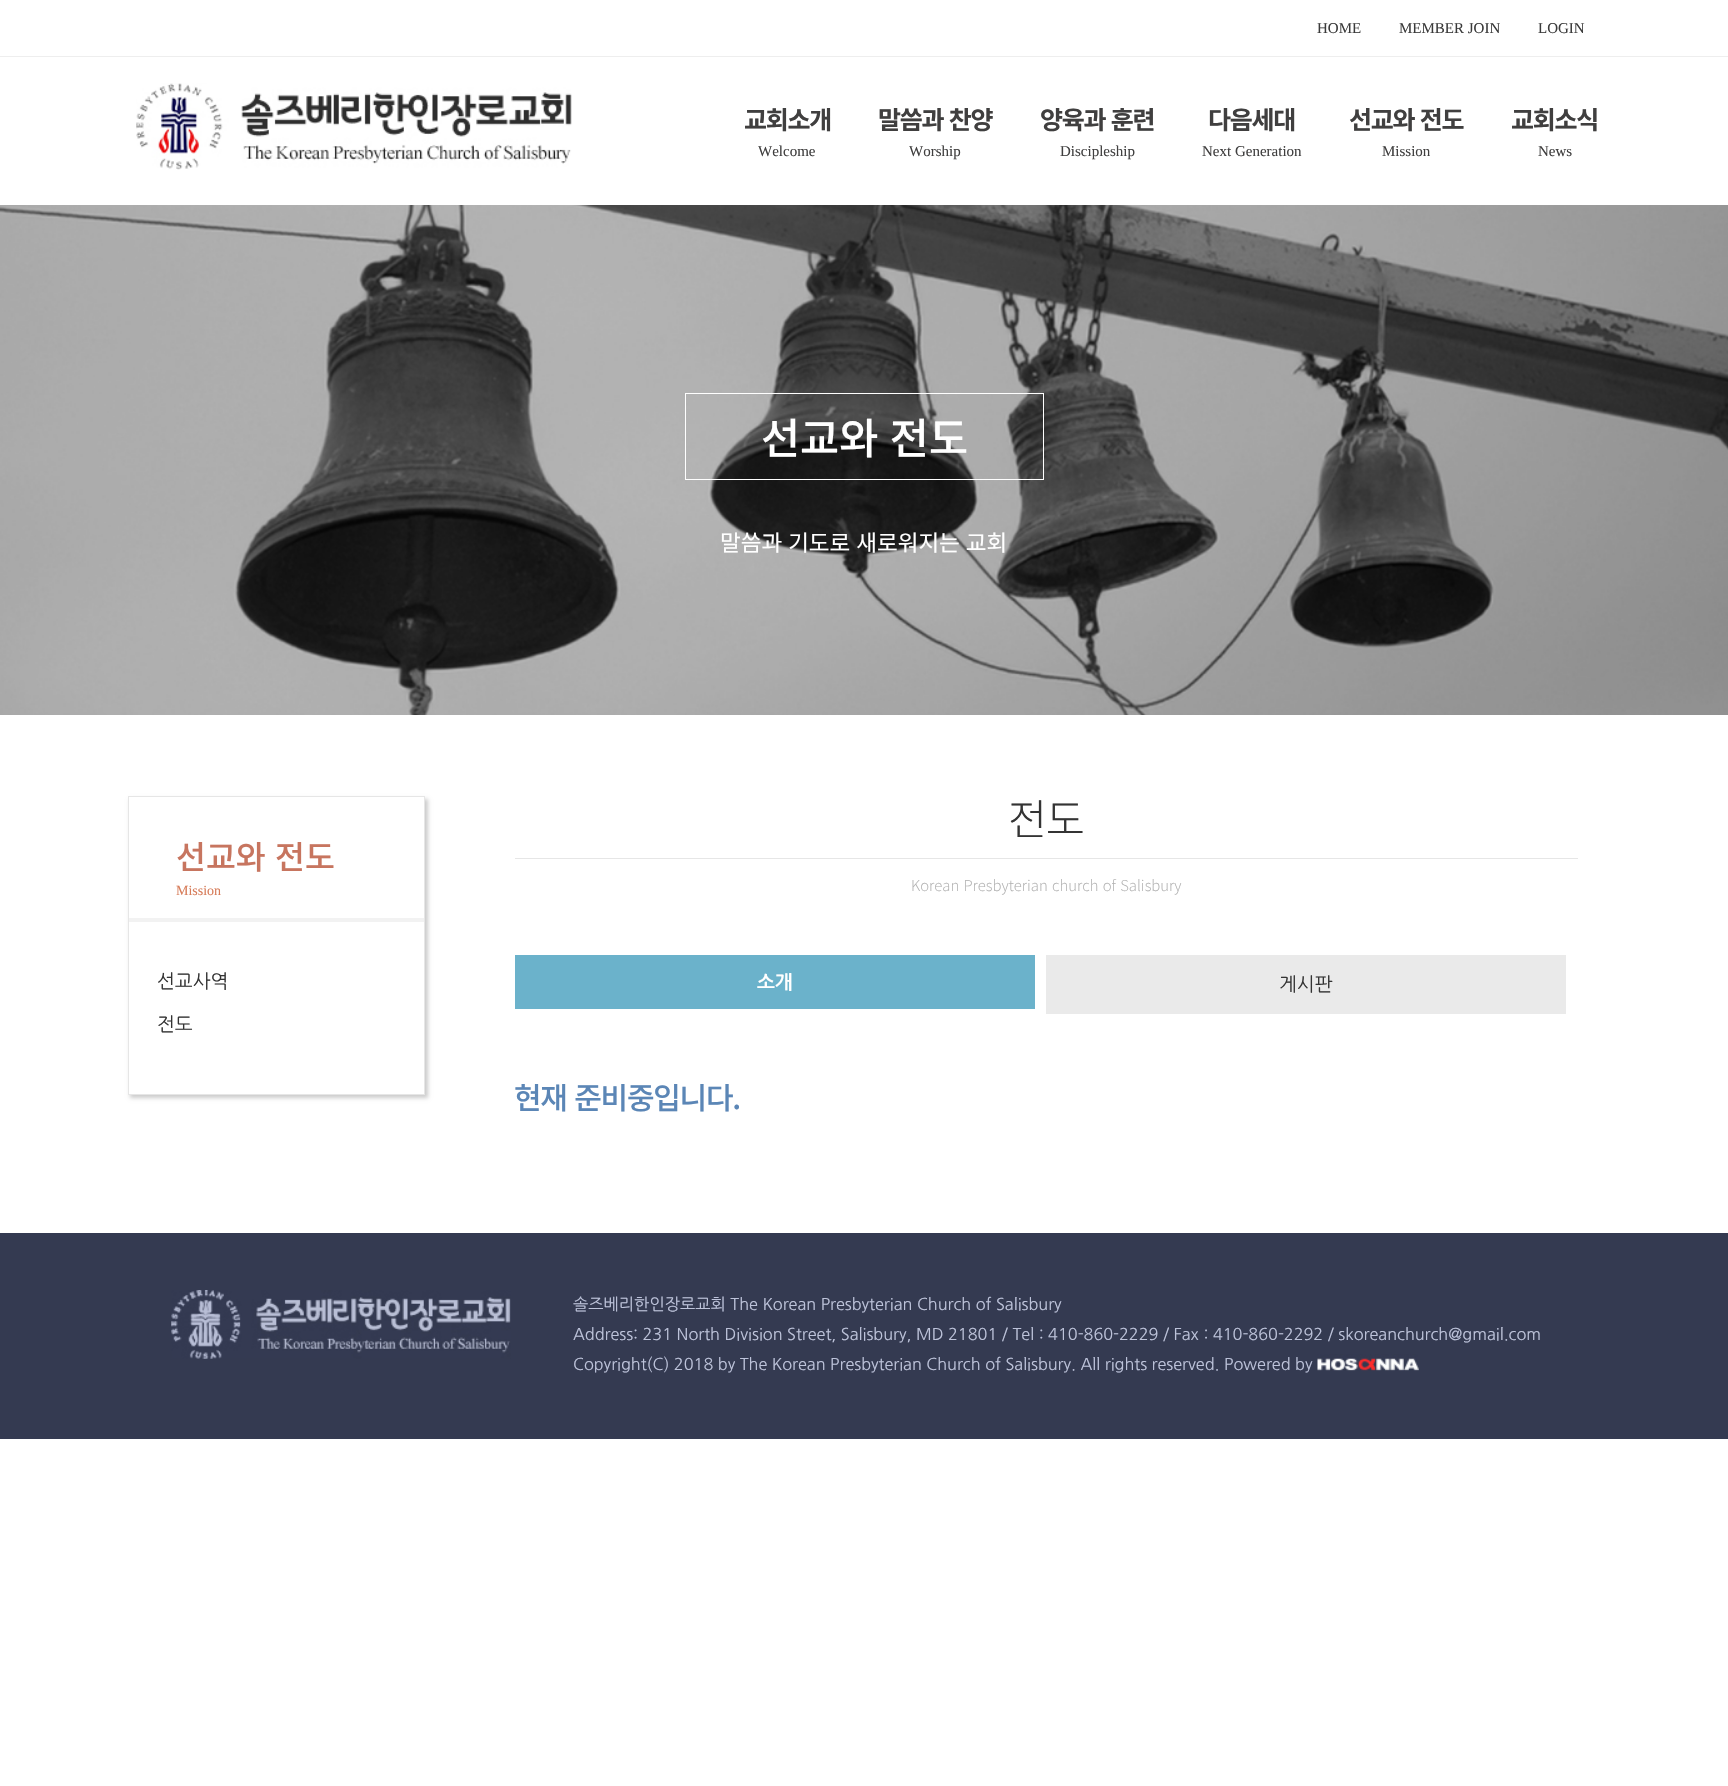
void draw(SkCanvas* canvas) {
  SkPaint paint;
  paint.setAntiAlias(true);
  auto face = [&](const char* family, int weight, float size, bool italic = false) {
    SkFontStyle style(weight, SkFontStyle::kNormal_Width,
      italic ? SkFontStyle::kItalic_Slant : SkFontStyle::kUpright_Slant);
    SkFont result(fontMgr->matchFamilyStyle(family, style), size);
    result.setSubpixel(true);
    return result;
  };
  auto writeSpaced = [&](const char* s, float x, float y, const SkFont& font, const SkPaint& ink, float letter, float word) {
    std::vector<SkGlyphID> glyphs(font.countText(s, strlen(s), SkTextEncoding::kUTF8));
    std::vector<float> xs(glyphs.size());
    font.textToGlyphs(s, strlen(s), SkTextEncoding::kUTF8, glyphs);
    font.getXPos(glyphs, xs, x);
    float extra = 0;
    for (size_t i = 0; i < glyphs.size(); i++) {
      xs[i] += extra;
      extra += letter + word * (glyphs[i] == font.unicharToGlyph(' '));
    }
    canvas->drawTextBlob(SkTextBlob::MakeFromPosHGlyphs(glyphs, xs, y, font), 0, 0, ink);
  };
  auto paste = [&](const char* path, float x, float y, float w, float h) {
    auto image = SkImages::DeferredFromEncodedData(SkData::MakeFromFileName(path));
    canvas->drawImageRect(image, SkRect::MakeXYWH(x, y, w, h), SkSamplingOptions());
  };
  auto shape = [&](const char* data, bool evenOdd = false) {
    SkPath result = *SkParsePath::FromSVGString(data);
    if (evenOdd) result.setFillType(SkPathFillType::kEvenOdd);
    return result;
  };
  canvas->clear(0xffffffff);
  paint.setColor(0xffeeeeee);
  canvas->drawRect(SkRect::MakeXYWH(0, 56, 1728, 1), paint);
  paste("img/1.png", 136, 83, 436, 87);
  paste("img/2.png", 0, 205, 1728, 510);
  paint.setStroke(true);
  paint.setStrokeWidth(1);
  paint.setColor(0xffffffff);
  canvas->drawRect(SkRect::MakeXYWH(685.5f, 393.5f, 358, 86), paint);
  canvas->save();
  canvas->clipPath(shape("M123 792H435V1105H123ZM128 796H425V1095H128Z", true), true);
  paint.setStroke(false);
  paint.setColor(0x33000000);
  paint.setMaskFilter(SkMaskFilter::MakeBlur(kNormal_SkBlurStyle, 2));
  canvas->drawRect(SkRect::MakeXYWH(130, 799, 298, 299), paint);
  paint.setMaskFilter(nullptr);
  canvas->restore();
  paint.setStroke(true);
  paint.setColor(0xffe6e6e6);
  canvas->drawRect(SkRect::MakeXYWH(128.5f, 796.5f, 296, 298), paint);
  paint.setStroke(false);
  {
    const struct { float x, y, w, h; SkColor color; } items[] = {
      {129, 918, 295, 4, 0xfff2f2f2},
      {515, 858, 1063, 1, 0xffe6e6e6},
      {515, 955, 520, 54, 0xff6bb2cb},
      {1046, 955, 520, 59, 0xffeaeaea},
      {0, 1233, 1728, 206, 0xff343a51},
    };
    for (auto [x, y, w, h, color] : items) {
      paint.setColor(color);
      canvas->drawRect(SkRect::MakeXYWH(x, y, w, h), paint);
    }
  }
  paste("img/3.png", 171, 1290, 340, 69);
  paste("img/4.png", 1317, 1354, 102, 17);
  auto f0 = face("Liberation Serif", 400, 15);
  paint.setColor(0xff3a3a3a);
  {
    const struct { const char* s; float x, y; } items[] = {
      {"HOME", 1317, 33},
      {"MEMBER JOIN", 1399, 33},
      {"LOGIN", 1538, 33},
    };
    for (auto [s, x, y] : items) {
      canvas->drawString(s, x, y, f0, paint);
    }
  }
  auto f1 = face("Noto Sans KR", 700, 25);
  paint.setColor(0xff403f3f);
  writeSpaced("교회소개", 744, 129, f1, paint, -1.25f, 0);
  canvas->drawString("Welcome", 758, 156, f0, paint);
  writeSpaced("말씀과 찬양", 878, 129, f1, paint, -1.25f, 1);
  canvas->drawString("Worship", 909, 156, f0, paint);
  writeSpaced("양육과 훈련", 1040, 129, f1, paint, -1.25f, 1);
  canvas->drawString("Discipleship", 1060, 156, f0, paint);
  writeSpaced("다음세대", 1208, 129, f1, paint, -1.25f, 0);
  canvas->drawString("Next Generation", 1202, 156, f0, paint);
  writeSpaced("선교와 전도", 1349, 129, f1, paint, -1.25f, 1);
  canvas->drawString("Mission", 1382, 156, f0, paint);
  writeSpaced("교회소식", 1511, 129, f1, paint, -1.25f, 0);
  canvas->drawString("News", 1538, 156, f0, paint);
  auto f2 = face("Noto Sans KR", 500, 42.5f);
  paint.setColor(0xffffffff);
  writeSpaced("선교와 전도", 761, 454, f2, paint, 0, 2);
  auto f3 = face("Noto Sans KR", 400, 22.5f);
  writeSpaced("말씀과 기도로 새로워지는 교회", 720, 551, f3, paint, 0, 1);
  auto f4 = face("Noto Sans KR", 500, 32.5f);
  paint.setColor(0xffc7755f);
  writeSpaced("선교와 전도", 176, 869, f4, paint, 0, 2);
  auto f5 = face("Liberation Serif", 400, 14);
  paint.setColor(0xffd77c59);
  canvas->drawString("Mission", 176, 895, f5, paint);
  auto f6 = face("NanumGothic", 400, 19);
  paint.setColor(0xff343434);
  canvas->drawString("선교사역", 157, 988, f6, paint);
  canvas->drawString("전도", 157, 1031, f6, paint);
  auto f7 = face("Noto Sans KR", 300, 42.5f);
  writeSpaced("전도", 1008, 835, f7, paint, -1.25f, 0);
  auto f8 = face("Noto Sans KR", 200, 15);
  paint.setColor(0xffb1b1b1);
  writeSpaced("Korean Presbyterian church of Salisbury", 911, 891, f8, paint, 0, 1);
  auto f9 = face("NanumGothic", 700, 19);
  paint.setColor(0xffffffff);
  canvas->drawString("소개", 757, 989, f9, paint);
  paint.setColor(0xff343434);
  canvas->drawString("게시판", 1279, 991, f6, paint);
  auto f10 = face("Noto Sans KR", 500, 30);
  paint.setColor(0xff5b86b6);
  writeSpaced("현재 준비중입니다.", 514, 1109, f10, paint, -1.25f, 2);
  auto f11 = face("NanumGothic", 400, 16.25f);
  paint.setColor(0xffbdc3da);
  {
    const struct { const char* s; float x, y; } items[] = {
      {"솔즈베리한인장로교회 The Korean Presbyterian Church of Salisbury", 573, 1310},
      {"Address: 231 North Division Street, Salisbury, MD 21801 / Tel : 410-860-2229 / Fax : 410-860-2292 / skoreanchurch@gmail.com", 573, 1340},
      {"Copyright(C) 2018 by The Korean Presbyterian Church of Salisbury. All rights reserved. Powered by", 573, 1370},
    };
    for (auto [s, x, y] : items) {
      canvas->drawString(s, x, y, f11, paint);
    }
  }
}
